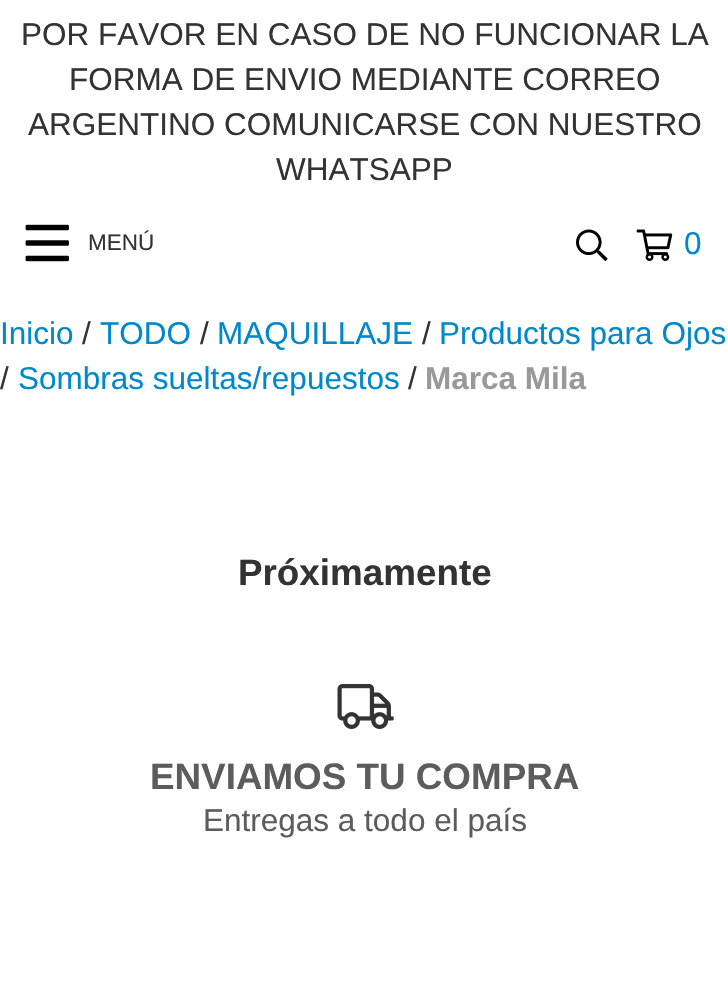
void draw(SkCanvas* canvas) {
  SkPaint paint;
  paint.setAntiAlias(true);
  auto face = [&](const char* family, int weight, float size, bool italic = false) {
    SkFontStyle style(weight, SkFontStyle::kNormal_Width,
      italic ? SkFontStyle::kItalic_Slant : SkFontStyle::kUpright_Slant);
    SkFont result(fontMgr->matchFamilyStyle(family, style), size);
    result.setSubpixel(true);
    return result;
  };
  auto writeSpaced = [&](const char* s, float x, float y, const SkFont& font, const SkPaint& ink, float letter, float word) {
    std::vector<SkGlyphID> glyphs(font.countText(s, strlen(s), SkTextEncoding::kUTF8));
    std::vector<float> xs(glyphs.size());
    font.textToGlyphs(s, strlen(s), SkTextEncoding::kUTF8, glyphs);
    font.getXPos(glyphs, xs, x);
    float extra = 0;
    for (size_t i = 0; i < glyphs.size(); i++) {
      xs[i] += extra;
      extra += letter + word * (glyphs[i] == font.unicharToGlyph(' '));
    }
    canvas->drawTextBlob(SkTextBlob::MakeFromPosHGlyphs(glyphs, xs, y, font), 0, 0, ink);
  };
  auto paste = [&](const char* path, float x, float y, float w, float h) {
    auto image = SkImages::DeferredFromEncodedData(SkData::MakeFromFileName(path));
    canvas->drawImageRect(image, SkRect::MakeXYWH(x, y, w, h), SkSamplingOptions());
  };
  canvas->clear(0xffffffff);
  paste("img/1.png", 25, 224, 44, 38);
  paste("img/2.png", 576, 229, 32, 32);
  paste("img/3.png", 636, 229, 37, 32);
  paste("img/4.png", 337, 684, 57, 45);
  auto f0 = face("Liberation Sans", 400, 31.5f);
  paint.setColor(0xff333333);
  {
    const struct { const char* s; float x, y; } items[] = {
      {"POR FAVOR EN CASO DE NO FUNCIONAR LA", 21, 45},
      {"FORMA DE ENVIO MEDIANTE CORREO", 69, 90},
      {"ARGENTINO COMUNICARSE CON NUESTRO", 28, 135},
      {"WHATSAPP", 276, 180},
    };
    for (auto [s, x, y] : items) {
      canvas->drawString(s, x, y, f0, paint);
    }
  }
  auto f1 = face("Liberation Sans", 400, 22.5f);
  canvas->drawString("MENÚ", 88, 250, f1, paint);
  paint.setColor(0xff0088cc);
  writeSpaced("0", 684, 254, f0, paint, 2, 0);
  canvas->drawString("Inicio", 0, 344, f0, paint);
  paint.setColor(0xff333333);
  canvas->drawString("/", 82, 344, f0, paint);
  paint.setColor(0xff0088cc);
  canvas->drawString("TODO", 100, 344, f0, paint);
  paint.setColor(0xff333333);
  canvas->drawString("/", 200, 344, f0, paint);
  paint.setColor(0xff0088cc);
  canvas->drawString("MAQUILLAJE", 217, 344, f0, paint);
  paint.setColor(0xff333333);
  canvas->drawString("/", 422, 344, f0, paint);
  paint.setColor(0xff0088cc);
  canvas->drawString("Productos para Ojos", 439, 344, f0, paint);
  paint.setColor(0xff333333);
  canvas->drawString("/", 0, 389, f0, paint);
  paint.setColor(0xff0088cc);
  canvas->drawString("Sombras sueltas/repuestos", 18, 389, f0, paint);
  paint.setColor(0xff333333);
  canvas->drawString("/", 408, 389, f0, paint);
  auto f2 = face("Liberation Sans", 700, 31.5f);
  paint.setColor(0xff999999);
  canvas->drawString("Marca Mila", 425, 389, f2, paint);
  auto f3 = face("Liberation Sans", 700, 36.8f);
  paint.setColor(0xff333333);
  canvas->drawString("Próximamente", 238, 585, f3, paint);
  paint.setColor(0xff5c5c5c);
  canvas->drawString("ENVIAMOS TU COMPRA", 150, 789, f3, paint);
  canvas->drawString("Entregas a todo el país", 203, 831, f0, paint);
}
